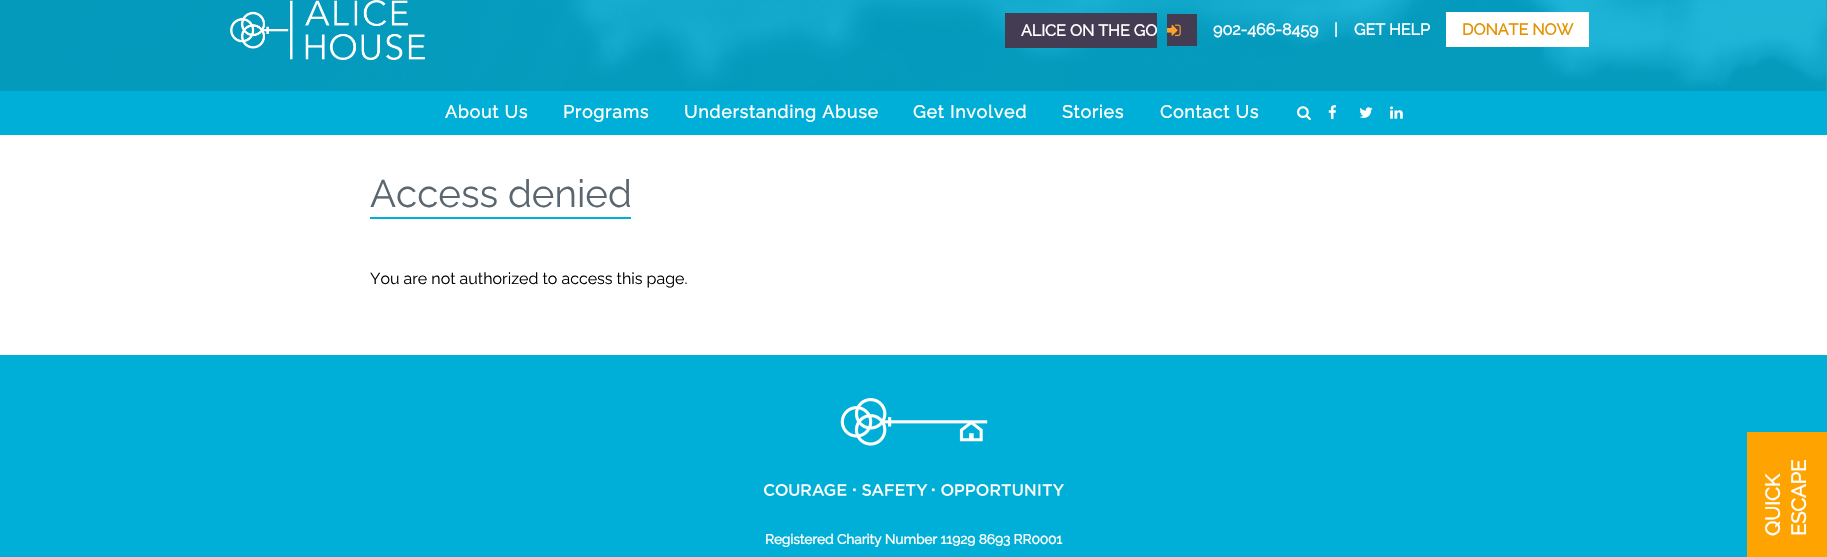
void draw(SkCanvas* canvas) {
  SkPaint paint;
  paint.setAntiAlias(true);
  auto face = [&](const char* family, int weight, float size, bool italic = false) {
    SkFontStyle style(weight, SkFontStyle::kNormal_Width,
      italic ? SkFontStyle::kItalic_Slant : SkFontStyle::kUpright_Slant);
    SkFont result(fontMgr->matchFamilyStyle(family, style), size);
    result.setSubpixel(true);
    return result;
  };
  auto writeSpaced = [&](const char* s, float x, float y, const SkFont& font, const SkPaint& ink, float letter, float word) {
    std::vector<SkGlyphID> glyphs(font.countText(s, strlen(s), SkTextEncoding::kUTF8));
    std::vector<float> xs(glyphs.size());
    font.textToGlyphs(s, strlen(s), SkTextEncoding::kUTF8, glyphs);
    font.getXPos(glyphs, xs, x);
    float extra = 0;
    for (size_t i = 0; i < glyphs.size(); i++) {
      xs[i] += extra;
      extra += letter + word * (glyphs[i] == font.unicharToGlyph(' '));
    }
    canvas->drawTextBlob(SkTextBlob::MakeFromPosHGlyphs(glyphs, xs, y, font), 0, 0, ink);
  };
  auto paste = [&](const char* path, float x, float y, float w, float h) {
    auto image = SkImages::DeferredFromEncodedData(SkData::MakeFromFileName(path));
    canvas->drawImageRect(image, SkRect::MakeXYWH(x, y, w, h), SkSamplingOptions());
  };
  canvas->clear(0xffffffff);
  paste("img/1.png", 0, 0, 1827, 91);
  paste("img/2.png", 230, 0, 195, 60);
  paint.setColor(0xff443c53);
  canvas->drawRect(SkRect::MakeXYWH(1005, 13, 152, 35), paint);
  canvas->drawRect(SkRect::MakeXYWH(1167, 14, 30, 32), paint);
  paste("img/3.png", 1167, 24, 14, 12);
  paint.setColor(0xffffffff);
  canvas->drawRect(SkRect::MakeXYWH(1446, 12, 143, 35), paint);
  paint.setColor(0xff00afd7);
  canvas->drawRect(SkRect::MakeXYWH(0, 91, 1827, 44), paint);
  paste("img/4.png", 1297, 106, 14, 15);
  paste("img/5.png", 1328, 105, 9, 15);
  paste("img/6.png", 1359, 107, 14, 11);
  paste("img/7.png", 1390, 106, 13, 13);
  canvas->drawRect(SkRect::MakeXYWH(370, 217, 261, 2), paint);
  canvas->drawRect(SkRect::MakeXYWH(0, 355, 1827, 202), paint);
  paste("img/8.png", 764, 398, 300, 98);
  paint.setColor(0xffffa300);
  canvas->drawRect(SkRect::MakeXYWH(1747, 432, 80, 125), paint);
  auto f0 = face("Raleway", 700, 16);
  paint.setColor(0xffffffff);
  {
    const struct { const char* s; float x, y; } items[] = {
      {"ALICE ON THE GO", 1021, 36},
      {"902-466-8459", 1213, 35},
      {"|", 1334, 35},
      {"GET HELP", 1354, 35},
    };
    for (auto [s, x, y] : items) {
      canvas->drawString(s, x, y, f0, paint);
    }
  }
  paint.setColor(0xffe49200);
  canvas->drawString("DONATE NOW", 1462, 35, f0, paint);
  auto f1 = face("Raleway", 700, 17.6f);
  paint.setColor(0xffffffff);
  {
    const struct { const char* s; float x, y; } items[] = {
      {"About Us", 445, 118},
      {"Programs", 563, 118},
      {"Understanding Abuse", 684, 118},
      {"Get Involved", 913, 118},
      {"Stories", 1062, 118},
      {"Contact Us", 1160, 118},
    };
    for (auto [s, x, y] : items) {
      writeSpaced(s, x, y, f1, paint, 0.9f, 0);
    }
  }
  auto f2 = face("Raleway", 100, 38.5f);
  paint.setColor(0xff5b6770);
  canvas->drawString("Access denied", 370, 207, f2, paint);
  auto f3 = face("Raleway", 100, 16);
  paint.setColor(0xff000000);
  canvas->drawString("You are not authorized to access this page.", 370, 284, f3, paint);
  auto f4 = face("Raleway", 700, 13.6f);
  paint.setColor(0xffffffff);
  canvas->drawString("Registered Charity Number 11929 8693 RR0001", 765, 544, f4, paint);
  auto f5 = face("Raleway", 700, 20);
  canvas->save();
  canvas->rotate(-90, 1780, 536);
  canvas->drawString("QUICK", 1780, 536, f5, paint);
  canvas->restore();
  canvas->save();
  canvas->rotate(-90, 1806, 536);
  canvas->drawString("ESCAPE", 1806, 536, f5, paint);
  canvas->restore();
}
